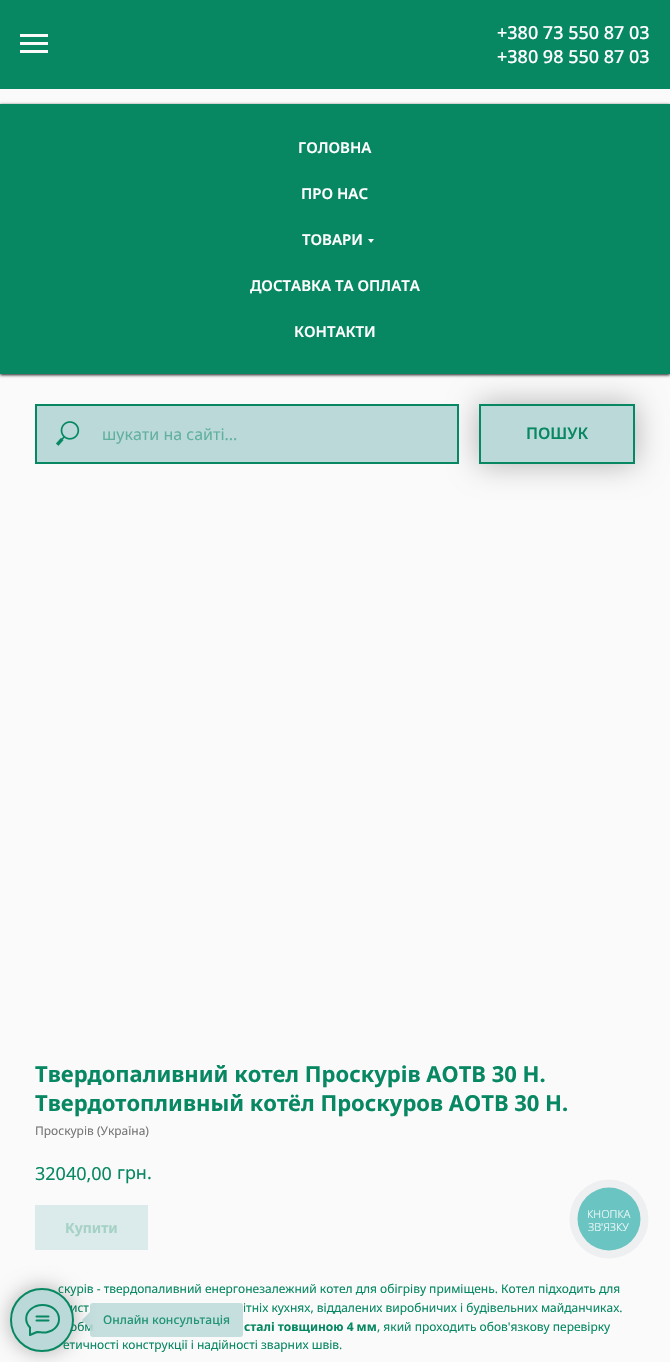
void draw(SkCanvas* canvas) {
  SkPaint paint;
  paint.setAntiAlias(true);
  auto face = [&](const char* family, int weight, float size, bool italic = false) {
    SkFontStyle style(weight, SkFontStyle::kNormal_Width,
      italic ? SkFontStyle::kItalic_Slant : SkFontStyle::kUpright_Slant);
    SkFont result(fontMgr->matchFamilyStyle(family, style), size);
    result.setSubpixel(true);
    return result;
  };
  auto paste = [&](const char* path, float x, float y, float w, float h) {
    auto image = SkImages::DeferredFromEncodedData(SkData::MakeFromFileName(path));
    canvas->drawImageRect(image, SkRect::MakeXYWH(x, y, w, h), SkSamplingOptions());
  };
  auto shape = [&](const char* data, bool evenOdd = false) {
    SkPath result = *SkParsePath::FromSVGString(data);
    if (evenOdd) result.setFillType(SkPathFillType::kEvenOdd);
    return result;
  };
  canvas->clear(0xfffafafa);
  {
    const struct { float x, y, w, h; SkColor color; } items[] = {
      {0, 0, 670, 89, 0xff078862},
      {20, 34, 28, 3, 0xfffafafa},
      {20, 42, 28, 3, 0xfffafafa},
      {20, 50, 28, 3, 0xfffafafa},
    };
    for (auto [x, y, w, h, color] : items) {
      paint.setColor(color);
      canvas->drawRect(SkRect::MakeXYWH(x, y, w, h), paint);
    }
  }
  paint.setColor(0xe6000000);
  paint.setMaskFilter(SkMaskFilter::MakeBlur(kNormal_SkBlurStyle, 1.5f));
  canvas->drawRect(SkRect::MakeXYWH(0, 105, 670, 270), paint);
  paint.setMaskFilter(nullptr);
  paint.setColor(0xff078862);
  canvas->drawRect(SkRect::MakeXYWH(0, 104, 670, 270), paint);
  paint.setColor(0xfffafafa);
  canvas->drawPath(shape("M368 239H374L371 243Z"), paint);
  paint.setColor(0x4d000000);
  paint.setMaskFilter(SkMaskFilter::MakeBlur(kNormal_SkBlurStyle, 15));
  canvas->drawRect(SkRect::MakeXYWH(479, 404, 156, 60), paint);
  paint.setMaskFilter(nullptr);
  paint.setColor(0xffbbd9d9);
  canvas->drawRect(SkRect::MakeXYWH(36, 405, 422, 58), paint);
  paint.setStroke(true);
  paint.setStrokeWidth(2);
  paint.setColor(0xff078862);
  canvas->drawRect(SkRect::MakeXYWH(36, 405, 422, 58), paint);
  paste("img/1.png", 56, 421, 24, 25);
  paint.setStroke(false);
  paint.setColor(0xffbbd9d9);
  canvas->drawRect(SkRect::MakeXYWH(480, 405, 154, 58), paint);
  paint.setStroke(true);
  paint.setColor(0xff078862);
  canvas->drawRect(SkRect::MakeXYWH(480, 405, 154, 58), paint);
  paint.setStroke(false);
  paint.setColor(0xffdbeaea);
  canvas->drawRect(SkRect::MakeXYWH(35, 1205, 113, 45), paint);
  paint.setColor(0xffeeeff1);
  canvas->drawCircle(609, 1219, 39.5f, paint);
  paint.setColor(0xff6ac4c1);
  canvas->drawCircle(609, 1219, 31.5f, paint);
  auto f0 = face("Noto Sans", 500, 18);
  paint.setColor(0xffffffff);
  canvas->drawString("+380 73 550 87 03", 497, 39, f0, paint);
  canvas->drawString("+380 98 550 87 03", 497, 63, f0, paint);
  auto f1 = face("Noto Sans", 600, 15);
  {
    const struct { const char* s; float x, y; } items[] = {
      {"ГОЛОВНА", 298, 153},
      {"ПРО НАС", 301, 199},
      {"ТОВАРИ", 302, 245},
      {"ДОСТАВКА ТА ОПЛАТА", 250, 291},
      {"КОНТАКТИ", 294, 337},
    };
    for (auto [s, x, y] : items) {
      canvas->drawString(s, x, y, f1, paint);
    }
  }
  auto f2 = face("Noto Sans", 400, 16);
  paint.setColor(0xff61b19e);
  canvas->drawString("шукати на сайті...", 102, 440, f2, paint);
  auto f3 = face("Noto Sans", 600, 16);
  paint.setColor(0xff078862);
  canvas->drawString("ПОШУК", 526, 439, f3, paint);
  auto f4 = face("Noto Sans", 700, 22);
  canvas->drawString("Твердопаливний котел Проскурів АОТВ 30 Н.", 35, 1082, f4, paint);
  canvas->drawString("Твердотопливный котёл Проскуров АОТВ 30 Н.", 35, 1111, f4, paint);
  auto f5 = face("Noto Sans", 400, 12);
  paint.setColor(0xff777777);
  canvas->drawString("Проскурів (Україна)", 35, 1135, f5, paint);
  auto f6 = face("Noto Sans", 400, 18);
  paint.setColor(0xff078862);
  canvas->drawString("32040,00", 35, 1180, f6, paint);
  canvas->drawString("грн.", 117, 1179, f6, paint);
  auto f7 = face("Noto Sans", 700, 14);
  paint.setColor(0xffa5d2c5);
  canvas->drawString("Купити", 65, 1233, f7, paint);
  paint.setColor(0xff078862);
  {
    const struct { const char* s; float x, y; } items[] = {
      {"скурів - твердопаливний енергонезалежний котел для обігріву приміщень. Котел підходить для", 58, 1293},
      {"ист", 70, 1312},
      {"ітніх кухнях, віддалених виробничих і будівельних майданчиках.", 243, 1312},
      {"обм", 70, 1331},
    };
    for (auto [s, x, y] : items) {
      canvas->drawString(s, x, y, f5, paint);
    }
  }
  paint.setColor(0xd9bbd9d9);
  canvas->drawPath(shape("M90 1312V1328L82 1320Z"), paint);
  canvas->drawRoundRect(SkRect::MakeXYWH(90, 1303, 153, 34), 3, 3, paint);
  paint.setColor(0x4d000000);
  paint.setMaskFilter(SkMaskFilter::MakeBlur(kNormal_SkBlurStyle, 10));
  canvas->drawRoundRect(SkRect::MakeXYWH(10, 1288, 64, 64), 32, 32, paint);
  paint.setMaskFilter(nullptr);
  auto f8 = face("Noto Sans", 500, 12);
  paint.setColor(0xff239575);
  canvas->drawString("Онлайн консультація", 103, 1324, f8, paint);
  auto f9 = face("Noto Sans", 700, 12);
  paint.setColor(0xff078862);
  canvas->drawString("сталі товщиною 4 мм", 244, 1331, f9, paint);
  canvas->drawString(", який проходить обов'язкову перевірку", 377, 1331, f5, paint);
  canvas->drawString("етичності конструкції і надійності зварних швів.", 63, 1349, f5, paint);
  paint.setColor(0xffbbd9d9);
  canvas->drawCircle(42, 1320, 31, paint);
  paint.setStroke(true);
  paint.setColor(0xff078862);
  canvas->drawCircle(42, 1320, 31, paint);
  paint.setStrokeCap(SkPaint::kRound_Cap);
  paint.setStrokeJoin(SkPaint::kRound_Join);
  canvas->drawPath(shape("M36.5 1316.5H48.5M36.5 1320.5H48.5M30 1327.5C24.5 1322 25 1314 31 1309C34 1306.5 38.5 1305 42.5 1305C62 1305 65.5 1329 46 1332.5C42 1333 40.5 1332 37 1332L30 1335V1328Z"), paint);
  auto f10 = face("Open Sans", 300, 11);
  paint.setStroke(false);
  paint.setColor(0xffffffff);
  canvas->drawString("КНОПКА", 587, 1218, f10, paint);
  canvas->drawString("ЗВ'ЯЗКУ", 588, 1231, f10, paint);
}
